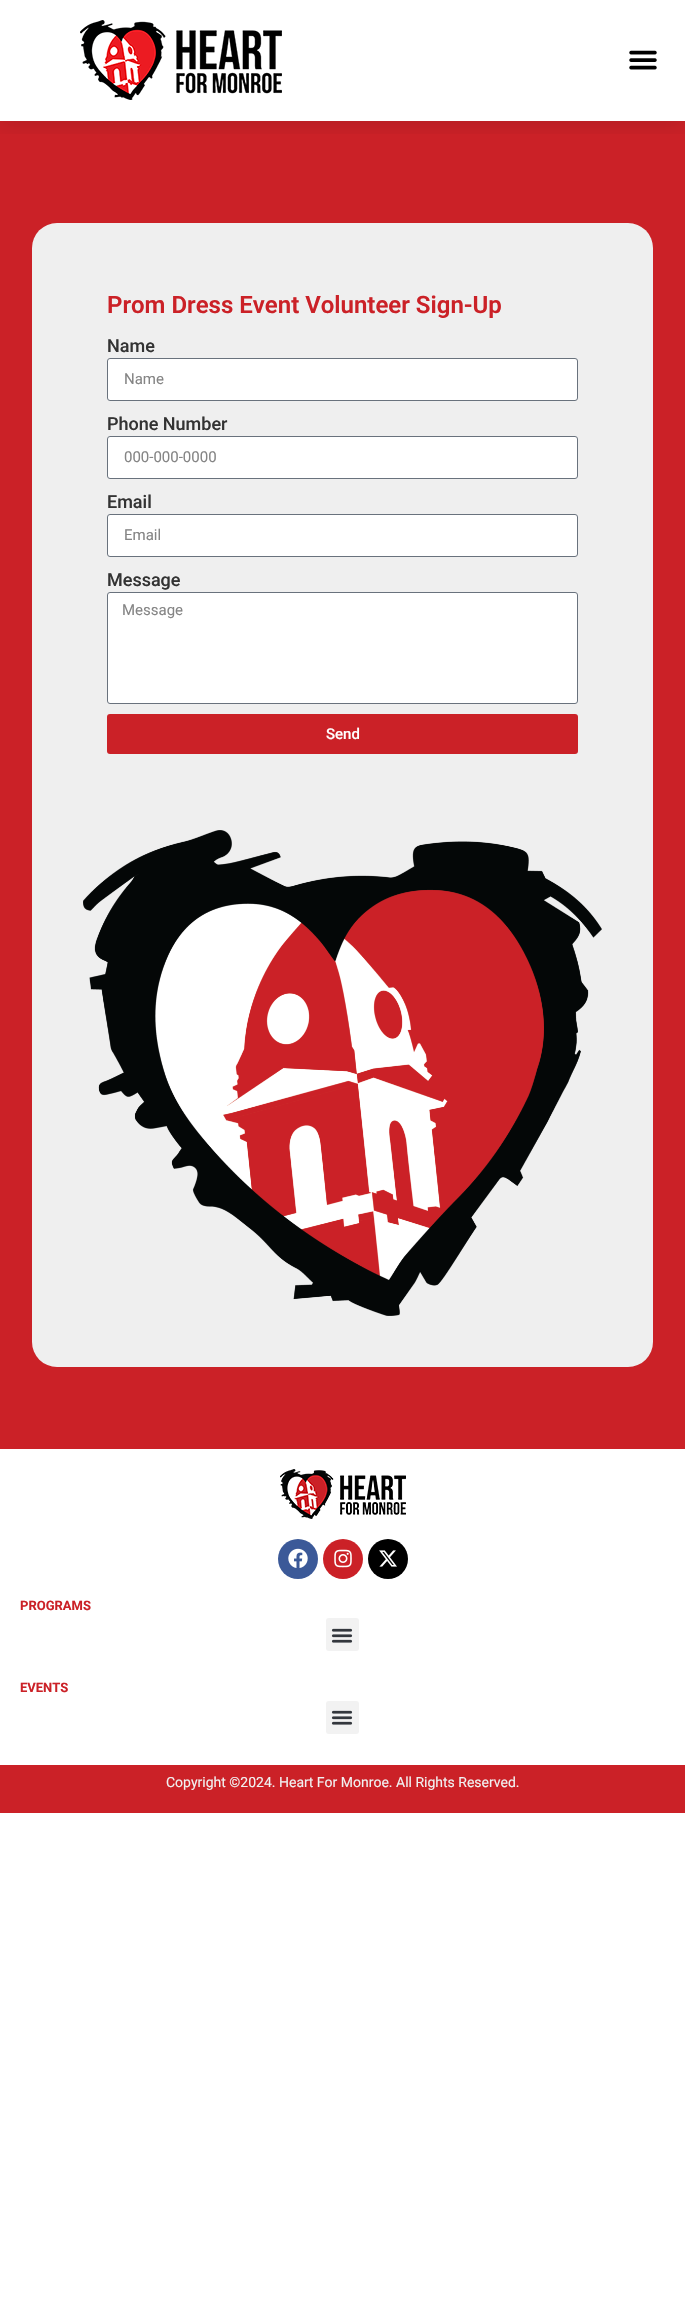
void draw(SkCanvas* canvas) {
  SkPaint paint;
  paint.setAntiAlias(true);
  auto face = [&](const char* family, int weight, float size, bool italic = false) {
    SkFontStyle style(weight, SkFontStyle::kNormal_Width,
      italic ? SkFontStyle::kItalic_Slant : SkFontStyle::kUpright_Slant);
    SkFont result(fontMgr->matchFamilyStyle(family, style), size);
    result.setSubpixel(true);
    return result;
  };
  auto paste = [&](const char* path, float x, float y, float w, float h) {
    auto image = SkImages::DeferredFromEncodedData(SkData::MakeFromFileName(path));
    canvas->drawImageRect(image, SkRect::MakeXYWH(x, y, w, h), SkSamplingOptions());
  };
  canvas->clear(0xffffffff);
  paint.setColor(0xffcb2127);
  canvas->drawRect(SkRect::MakeXYWH(0, 121, 685, 1328), paint);
  canvas->save();
  canvas->clipRect(SkRect::MakeXYWH(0, 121, 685, 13));
  paint.setColor(0x26000000);
  paint.setMaskFilter(SkMaskFilter::MakeBlur(kNormal_SkBlurStyle, 12));
  canvas->drawRect(SkRect::MakeXYWH(0, 0, 685, 121), paint);
  paint.setMaskFilter(nullptr);
  canvas->restore();
  paste("img/1.png", 80, 20, 202, 80);
  paste("img/2.png", 629, 50, 28, 20);
  paint.setColor(0xffefefef);
  canvas->drawRoundRect(SkRect::MakeXYWH(32, 223, 621, 1144), 25, 25, paint);
  paint.setColor(0xffffffff);
  canvas->drawRoundRect(SkRect::MakeXYWH(107.5f, 358.5f, 470, 42), 2.5f, 2.5f, paint);
  paint.setStroke(true);
  paint.setStrokeWidth(1);
  paint.setColor(0xff69727d);
  canvas->drawRoundRect(SkRect::MakeXYWH(107.5f, 358.5f, 470, 42), 2.5f, 2.5f, paint);
  paint.setStroke(false);
  paint.setColor(0xffffffff);
  canvas->drawRoundRect(SkRect::MakeXYWH(107.5f, 436.5f, 470, 42), 2.5f, 2.5f, paint);
  paint.setStroke(true);
  paint.setColor(0xff69727d);
  canvas->drawRoundRect(SkRect::MakeXYWH(107.5f, 436.5f, 470, 42), 2.5f, 2.5f, paint);
  paint.setStroke(false);
  paint.setColor(0xffffffff);
  canvas->drawRoundRect(SkRect::MakeXYWH(107.5f, 514.5f, 470, 42), 2.5f, 2.5f, paint);
  paint.setStroke(true);
  paint.setColor(0xff69727d);
  canvas->drawRoundRect(SkRect::MakeXYWH(107.5f, 514.5f, 470, 42), 2.5f, 2.5f, paint);
  paint.setStroke(false);
  paint.setColor(0xffffffff);
  canvas->drawRoundRect(SkRect::MakeXYWH(107.5f, 592.5f, 470, 111), 2.5f, 2.5f, paint);
  paint.setStroke(true);
  paint.setColor(0xff69727d);
  canvas->drawRoundRect(SkRect::MakeXYWH(107.5f, 592.5f, 470, 111), 2.5f, 2.5f, paint);
  paint.setStroke(false);
  paint.setColor(0xffcb2127);
  canvas->drawRoundRect(SkRect::MakeXYWH(107, 714, 471, 40), 3, 3, paint);
  paste("img/3.png", 83, 830, 519, 486);
  paste("img/4.png", 280, 1469, 126, 50);
  paint.setColor(0xff3b5998);
  canvas->drawCircle(298, 1559, 20, paint);
  paste("img/5.png", 288, 1548, 20, 20);
  paint.setColor(0xffcb2127);
  canvas->drawCircle(343, 1559, 20, paint);
  paste("img/6.png", 334, 1549, 18, 19);
  paint.setColor(0xff000000);
  canvas->drawCircle(388, 1559, 20, paint);
  paste("img/7.png", 379, 1550, 18, 17);
  paint.setColor(0xfff2f2f2);
  canvas->drawRoundRect(SkRect::MakeXYWH(326, 1618, 33, 33), 3, 3, paint);
  paste("img/8.png", 331, 1628, 22, 15);
  canvas->drawRoundRect(SkRect::MakeXYWH(326, 1701, 33, 33), 3, 3, paint);
  paste("img/8.png", 331, 1710, 22, 15);
  paint.setColor(0xffcb2127);
  canvas->drawRect(SkRect::MakeXYWH(0, 1765, 685, 48), paint);
  auto f0 = face("Roboto", 600, 24);
  canvas->drawString("Prom Dress Event Volunteer Sign-Up", 107, 313, f0, paint);
  auto f1 = face("Roboto", 500, 18);
  paint.setColor(0xff333333);
  canvas->drawString("Name", 107, 352, f1, paint);
  auto f2 = face("Roboto", 400, 15);
  paint.setColor(0xff858585);
  canvas->drawString("Name", 124, 384, f2, paint);
  paint.setColor(0xff333333);
  canvas->drawString("Phone Number", 107, 430, f1, paint);
  paint.setColor(0xff858585);
  canvas->drawString("000-000-0000", 124, 462, f2, paint);
  paint.setColor(0xff333333);
  canvas->drawString("Email", 107, 508, f1, paint);
  paint.setColor(0xff858585);
  canvas->drawString("Email", 124, 540, f2, paint);
  paint.setColor(0xff333333);
  canvas->drawString("Message", 107, 586, f1, paint);
  paint.setColor(0xff858585);
  canvas->drawString("Message", 122, 615, f2, paint);
  auto f3 = face("Roboto", 500, 15);
  paint.setColor(0xffffffff);
  canvas->drawString("Send", 326, 739, f3, paint);
  auto f4 = face("Roboto", 700, 13);
  paint.setColor(0xffcb2127);
  canvas->drawString("PROGRAMS", 20, 1610, f4, paint);
  canvas->drawString("EVENTS", 20, 1692, f4, paint);
  auto f5 = face("Roboto", 400, 14);
  paint.setColor(0xfff1f1f1);
  canvas->drawString("Copyright ©2024. Heart For Monroe. All Rights Reserved.", 166, 1787, f5, paint);
}
